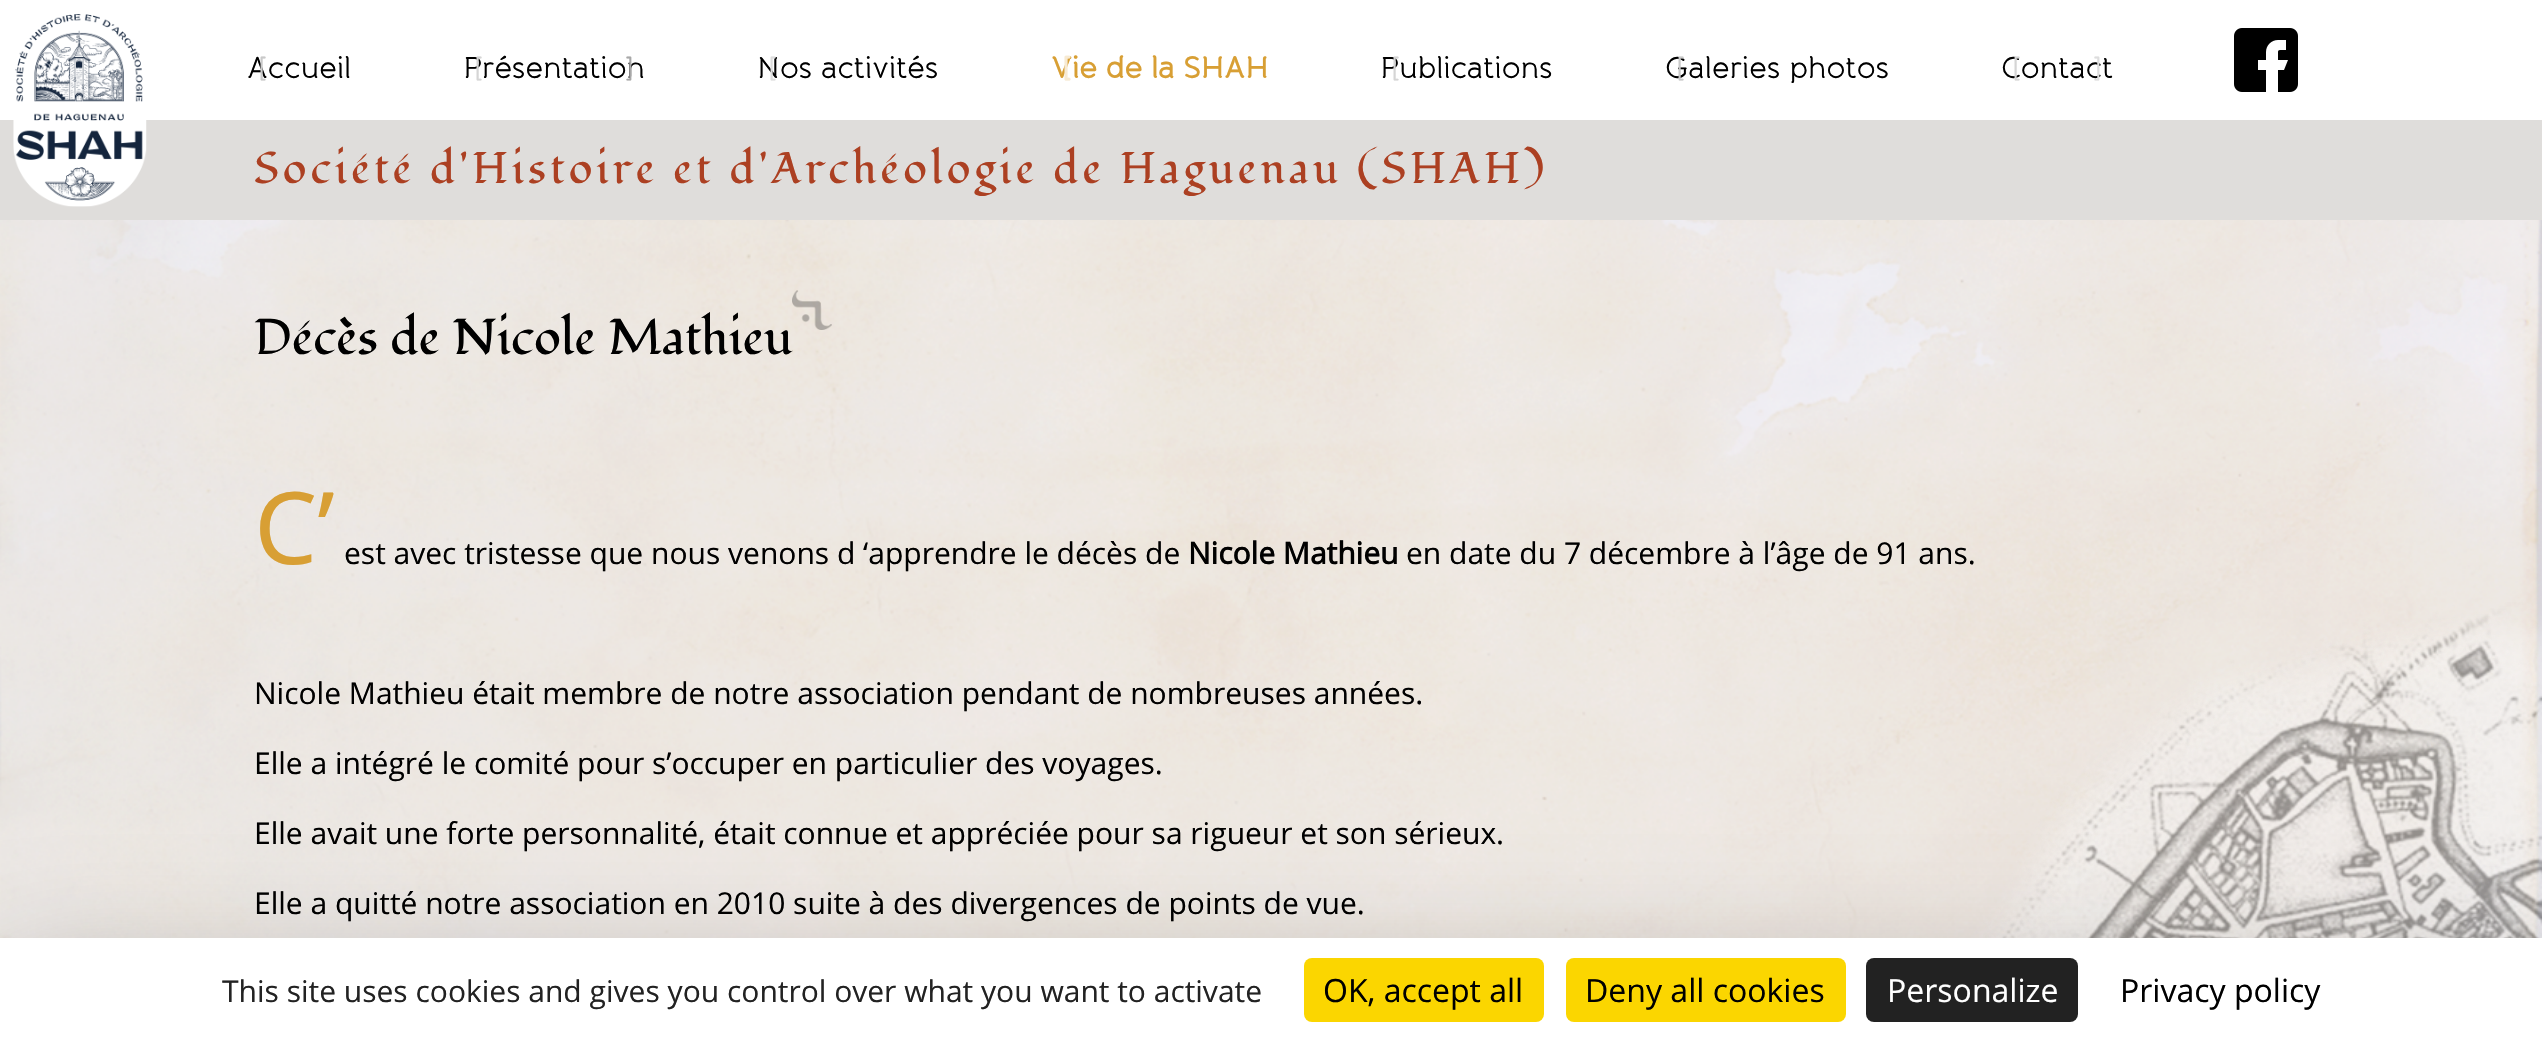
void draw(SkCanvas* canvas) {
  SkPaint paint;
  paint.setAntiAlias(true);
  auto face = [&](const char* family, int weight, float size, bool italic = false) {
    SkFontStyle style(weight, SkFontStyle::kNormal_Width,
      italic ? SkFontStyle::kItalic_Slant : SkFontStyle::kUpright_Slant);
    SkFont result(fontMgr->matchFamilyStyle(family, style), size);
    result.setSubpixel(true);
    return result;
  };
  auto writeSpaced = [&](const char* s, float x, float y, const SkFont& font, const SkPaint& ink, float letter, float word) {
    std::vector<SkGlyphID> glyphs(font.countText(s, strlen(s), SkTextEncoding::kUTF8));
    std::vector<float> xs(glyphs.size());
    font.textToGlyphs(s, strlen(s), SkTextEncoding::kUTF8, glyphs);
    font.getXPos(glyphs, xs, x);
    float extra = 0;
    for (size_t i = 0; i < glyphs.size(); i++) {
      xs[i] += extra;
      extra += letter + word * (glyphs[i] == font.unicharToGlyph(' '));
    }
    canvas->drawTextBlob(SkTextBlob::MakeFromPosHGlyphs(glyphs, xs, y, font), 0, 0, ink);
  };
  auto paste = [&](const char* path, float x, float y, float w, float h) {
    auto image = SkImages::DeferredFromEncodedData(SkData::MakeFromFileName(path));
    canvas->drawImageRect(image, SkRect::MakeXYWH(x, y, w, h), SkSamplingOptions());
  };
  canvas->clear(0xffffffff);
  paste("img/1.png", 0, 220, 2542, 718);
  paint.setColor(0xffdfdddb);
  canvas->drawRect(SkRect::MakeXYWH(0, 120, 2542, 100), paint);
  paste("img/2.png", 13, 14, 134, 193);
  paste("img/3.png", 2234, 28, 64, 64);
  paint.setColor(0x40000000);
  paint.setMaskFilter(SkMaskFilter::MakeBlur(kNormal_SkBlurStyle, 60));
  canvas->drawRect(SkRect::MakeXYWH(0, 978, 2542, 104), paint);
  paint.setMaskFilter(nullptr);
  paint.setColor(0xffffffff);
  canvas->drawRect(SkRect::MakeXYWH(0, 938, 2542, 104), paint);
  paint.setColor(0xfffbd600);
  canvas->drawRoundRect(SkRect::MakeXYWH(1304, 958, 240, 64), 8, 8, paint);
  canvas->drawRoundRect(SkRect::MakeXYWH(1566, 958, 280, 64), 8, 8, paint);
  paint.setColor(0xff222222);
  canvas->drawRoundRect(SkRect::MakeXYWH(1866, 958, 212, 64), 8, 8, paint);
  auto f0 = face("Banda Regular", 400, 30);
  paint.setColor(0xff000000);
  canvas->drawString("Accueil", 247, 78, f0, paint);
  paint.setColor(0xffc9c9c9);
  canvas->drawString("[", 258, 78, f0, paint);
  paint.setColor(0xff000000);
  canvas->drawString("Présentation", 463, 78, f0, paint);
  paint.setColor(0xffd5d5d5);
  canvas->drawString("[", 474, 78, f0, paint);
  paint.setColor(0xffa8a8a8);
  canvas->drawString("]", 625, 78, f0, paint);
  paint.setColor(0xff000000);
  canvas->drawString("Nos activités", 757, 78, f0, paint);
  paint.setColor(0xffdddddd);
  canvas->drawString("[", 768, 78, f0, paint);
  auto f1 = face("Banda Regular", 700, 30);
  paint.setColor(0xffd89f34);
  canvas->drawString("Vie de la SHAH", 1051, 78, f1, paint);
  paint.setColor(0xfff7ead3);
  canvas->drawString("[", 1062, 78, f1, paint);
  paint.setColor(0xff000000);
  canvas->drawString("Publications", 1380, 78, f0, paint);
  paint.setColor(0xffd5d5d5);
  canvas->drawString("[", 1391, 78, f0, paint);
  paint.setColor(0xff000000);
  canvas->drawString("Galeries photos", 1665, 78, f0, paint);
  paint.setColor(0xffc9c9c9);
  canvas->drawString("[", 1676, 78, f0, paint);
  paint.setColor(0xff000000);
  canvas->drawString("Contact", 2001, 78, f0, paint);
  paint.setColor(0xffd5d5d5);
  canvas->drawString("[", 2012, 78, f0, paint);
  paint.setColor(0xffdddddd);
  canvas->drawString("]", 2093, 78, f0, paint);
  auto f2 = face("Fondamento", 400, 44);
  paint.setColor(0xffac4022);
  writeSpaced("Société d'Histoire et d'Archéologie de Haguenau (SHAH)", 254, 183, f2, paint, 4, 0);
  auto f3 = face("Fondamento", 400, 50);
  paint.setColor(0xff000000);
  canvas->drawString("Décès de Nicole Mathieu", 254, 354, f3, paint);
  paste("img/4.png", 792, 290, 40, 40);
  auto f4 = face("Noto Sans", 400, 100);
  paint.setColor(0xffd89f34);
  canvas->drawString("C’", 254, 564, f4, paint);
  auto f5 = face("Open Sans", 400, 30);
  paint.setColor(0xff000000);
  canvas->drawString("est avec tristesse que nous venons d ‘apprendre le décès de", 344, 564, f5, paint);
  auto f6 = face("Open Sans", 700, 30);
  canvas->drawString("Nicole Mathieu", 1188, 564, f6, paint);
  {
    const struct { const char* s; float x, y; } items[] = {
      {"en date du 7 décembre à l’âge de 91 ans.", 1406, 564},
      {"Nicole Mathieu était membre de notre association pendant de nombreuses années.", 254, 704},
      {"Elle a intégré le comité pour s’occuper en particulier des voyages.", 254, 774},
      {"Elle avait une forte personnalité, était connue et appréciée pour sa rigueur et son sérieux.", 254, 844},
      {"Elle a quitté notre association en 2010 suite à des divergences de points de vue.", 254, 914},
    };
    for (auto [s, x, y] : items) {
      canvas->drawString(s, x, y, f5, paint);
    }
  }
  paint.setColor(0xff222222);
  canvas->drawString("This site uses cookies and gives you control over what you want to activate", 222, 1002, f5, paint);
  auto f7 = face("Open Sans", 400, 32);
  paint.setColor(0xff000000);
  canvas->drawString("OK, accept all", 1323, 1002, f7, paint);
  canvas->drawString("Deny all cookies", 1585, 1002, f7, paint);
  paint.setColor(0xffffffff);
  canvas->drawString("Personalize", 1887, 1002, f7, paint);
  paint.setColor(0xff000000);
  canvas->drawString("Privacy policy", 2120, 1002, f7, paint);
}
